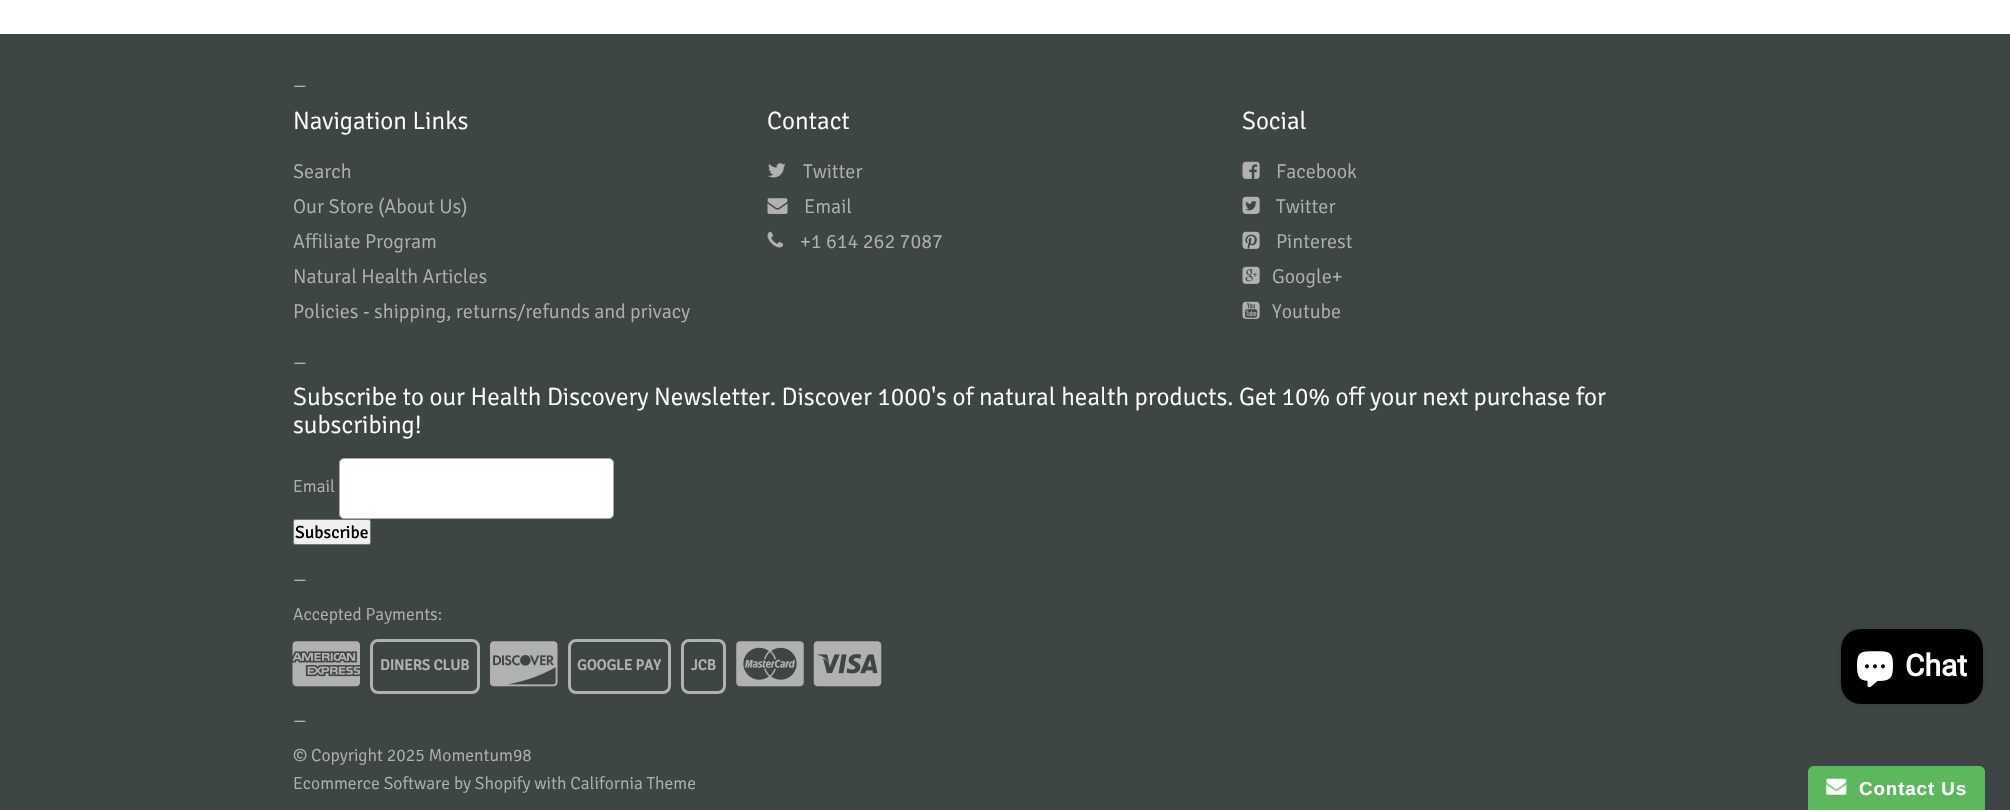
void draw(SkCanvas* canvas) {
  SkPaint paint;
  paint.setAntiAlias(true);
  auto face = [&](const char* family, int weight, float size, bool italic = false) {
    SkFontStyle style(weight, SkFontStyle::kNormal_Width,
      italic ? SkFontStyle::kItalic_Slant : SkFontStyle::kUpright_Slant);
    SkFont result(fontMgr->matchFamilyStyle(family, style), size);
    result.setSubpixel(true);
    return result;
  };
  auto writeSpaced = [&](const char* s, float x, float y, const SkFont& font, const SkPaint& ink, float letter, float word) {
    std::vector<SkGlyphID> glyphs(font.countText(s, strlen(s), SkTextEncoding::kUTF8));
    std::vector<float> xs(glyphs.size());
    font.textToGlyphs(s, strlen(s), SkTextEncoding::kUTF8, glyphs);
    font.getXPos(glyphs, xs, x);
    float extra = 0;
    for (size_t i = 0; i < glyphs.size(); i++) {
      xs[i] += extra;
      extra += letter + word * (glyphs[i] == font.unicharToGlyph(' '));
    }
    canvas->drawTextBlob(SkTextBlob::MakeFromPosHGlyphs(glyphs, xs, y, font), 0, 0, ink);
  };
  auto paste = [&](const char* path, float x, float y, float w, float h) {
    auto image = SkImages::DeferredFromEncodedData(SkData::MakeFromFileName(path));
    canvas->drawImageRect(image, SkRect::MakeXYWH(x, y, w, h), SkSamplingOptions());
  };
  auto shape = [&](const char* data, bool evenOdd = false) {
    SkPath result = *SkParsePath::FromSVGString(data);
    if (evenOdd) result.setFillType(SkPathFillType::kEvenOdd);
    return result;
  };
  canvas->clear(0xffffffff);
  paint.setColor(0xff3e4645);
  canvas->drawRect(SkRect::MakeXYWH(0, 34, 2010, 776), paint);
  paste("img/1.png", 768, 163, 18, 15);
  paste("img/2.png", 767, 198, 21, 16);
  paste("img/3.png", 767, 231, 17, 17);
  paste("img/4.png", 1242, 161, 18, 18);
  paste("img/5.png", 1242, 196, 18, 18);
  paste("img/6.png", 1242, 231, 18, 18);
  paste("img/7.png", 1242, 266, 18, 18);
  paste("img/8.png", 1242, 301, 18, 18);
  paint.setColor(0xffffffff);
  canvas->drawRoundRect(SkRect::MakeXYWH(339.5f, 458.5f, 274, 60), 4.5f, 4.5f, paint);
  paint.setStroke(true);
  paint.setStrokeWidth(1);
  paint.setColor(0xffa8a8a8);
  canvas->drawRoundRect(SkRect::MakeXYWH(339.5f, 458.5f, 274, 60), 4.5f, 4.5f, paint);
  paint.setStroke(false);
  paint.setColor(0xffefefef);
  canvas->drawRoundRect(SkRect::MakeXYWH(293.5f, 519.5f, 77, 25), 2, 2, paint);
  paint.setStroke(true);
  paint.setColor(0xff767676);
  canvas->drawRoundRect(SkRect::MakeXYWH(293.5f, 519.5f, 77, 25), 2, 2, paint);
  paste("img/9.png", 292, 641, 68, 46);
  paint.setStrokeWidth(3);
  paint.setColor(0xffb1b1b1);
  canvas->drawRoundRect(SkRect::MakeXYWH(371.5f, 640.5f, 107, 52), 6.5f, 6.5f, paint);
  paste("img/10.png", 490, 641, 68, 46);
  canvas->drawRoundRect(SkRect::MakeXYWH(569.5f, 640.5f, 100, 52), 6.5f, 6.5f, paint);
  canvas->drawRoundRect(SkRect::MakeXYWH(682.5f, 640.5f, 42, 52), 6.5f, 6.5f, paint);
  paste("img/11.png", 736, 641, 68, 46);
  paste("img/12.png", 813, 641, 69, 46);
  paint.setStroke(false);
  paint.setColor(0x26000000);
  paint.setMaskFilter(SkMaskFilter::MakeBlur(kNormal_SkBlurStyle, 3));
  canvas->drawRoundRect(SkRect::MakeXYWH(1841, 629, 142, 75), 20, 20, paint);
  paint.setMaskFilter(nullptr);
  paint.setColor(0xff000000);
  canvas->drawRoundRect(SkRect::MakeXYWH(1841, 629, 142, 75), 20, 20, paint);
  paste("img/13.png", 1857, 651, 36, 37);
  paint.setColor(0xff5cb85c);
  canvas->drawPath(shape("M1814 766H1979C1982.5 766 1985 768.5 1985 772V810H1808V772C1808 768.5 1810.5 766 1814 766Z"), paint);
  paste("img/14.png", 1826, 778, 21, 17);
  auto f0 = face("Signika", 300, 17.5f);
  paint.setColor(0xffb1b1b1);
  canvas->drawString("—", 293, 91, f0, paint);
  auto f1 = face("Signika", 300, 25);
  paint.setColor(0xffffffff);
  canvas->drawString("Navigation Links", 293, 129, f1, paint);
  auto f2 = face("Signika", 300, 20);
  paint.setColor(0xffb1b1b1);
  {
    const struct { const char* s; float x, y; } items[] = {
      {"Search", 293, 178},
      {"Our Store (About Us)", 293, 213},
      {"Affiliate Program", 293, 248},
      {"Natural Health Articles", 293, 283},
      {"Policies - shipping, returns/refunds and privacy", 293, 318},
    };
    for (auto [s, x, y] : items) {
      canvas->drawString(s, x, y, f2, paint);
    }
  }
  paint.setColor(0xffffffff);
  canvas->drawString("Contact", 767, 129, f1, paint);
  paint.setColor(0xffb1b1b1);
  {
    const struct { const char* s; float x, y; } items[] = {
      {"Twitter", 803, 178},
      {"Email", 804, 213},
      {"+1 614 262 7087", 800, 248},
    };
    for (auto [s, x, y] : items) {
      canvas->drawString(s, x, y, f2, paint);
    }
  }
  paint.setColor(0xffffffff);
  canvas->drawString("Social", 1242, 129, f1, paint);
  paint.setColor(0xffb1b1b1);
  {
    const struct { const char* s; float x, y; } items[] = {
      {"Facebook", 1276, 178},
      {"Twitter", 1276, 213},
      {"Pinterest", 1276, 248},
      {"Google+", 1272, 283},
      {"Youtube", 1272, 318},
    };
    for (auto [s, x, y] : items) {
      canvas->drawString(s, x, y, f2, paint);
    }
  }
  canvas->drawString("—", 293, 368, f0, paint);
  paint.setColor(0xffffffff);
  canvas->drawString("Subscribe to our Health Discovery Newsletter. Discover 1000's of natural health products. Get 10% off your next purchase for", 293, 405, f1, paint);
  canvas->drawString("subscribing!", 293, 433, f1, paint);
  paint.setColor(0xffb1b1b1);
  canvas->drawString("Email", 293, 492, f0, paint);
  auto f3 = face("Signika", 400, 17.5f);
  paint.setColor(0xff000000);
  canvas->drawString("Subscribe", 295, 538, f3, paint);
  paint.setColor(0xffb1b1b1);
  canvas->drawString("—", 293, 585, f0, paint);
  canvas->drawString("Accepted Payments:", 293, 620, f0, paint);
  auto f4 = face("Signika", 700, 15);
  {
    const struct { const char* s; float x, y; } items[] = {
      {"DINERS CLUB", 380, 670},
      {"GOOGLE PAY", 577, 670},
      {"JCB", 691, 670},
    };
    for (auto [s, x, y] : items) {
      canvas->drawString(s, x, y, f4, paint);
    }
  }
  {
    const struct { const char* s; float x, y; } items[] = {
      {"—", 293, 726},
      {"© Copyright 2025 Momentum98", 293, 761},
      {"Ecommerce Software by Shopify with California Theme", 293, 789},
    };
    for (auto [s, x, y] : items) {
      canvas->drawString(s, x, y, f0, paint);
    }
  }
  auto f5 = face("Roboto", 700, 30);
  paint.setColor(0xffffffff);
  canvas->drawString("Chat", 1905, 676, f5, paint);
  auto f6 = face("Liberation Sans", 700, 18.75f);
  writeSpaced("Contact Us", 1859, 795, f6, paint, 0.9f, 0);
}
